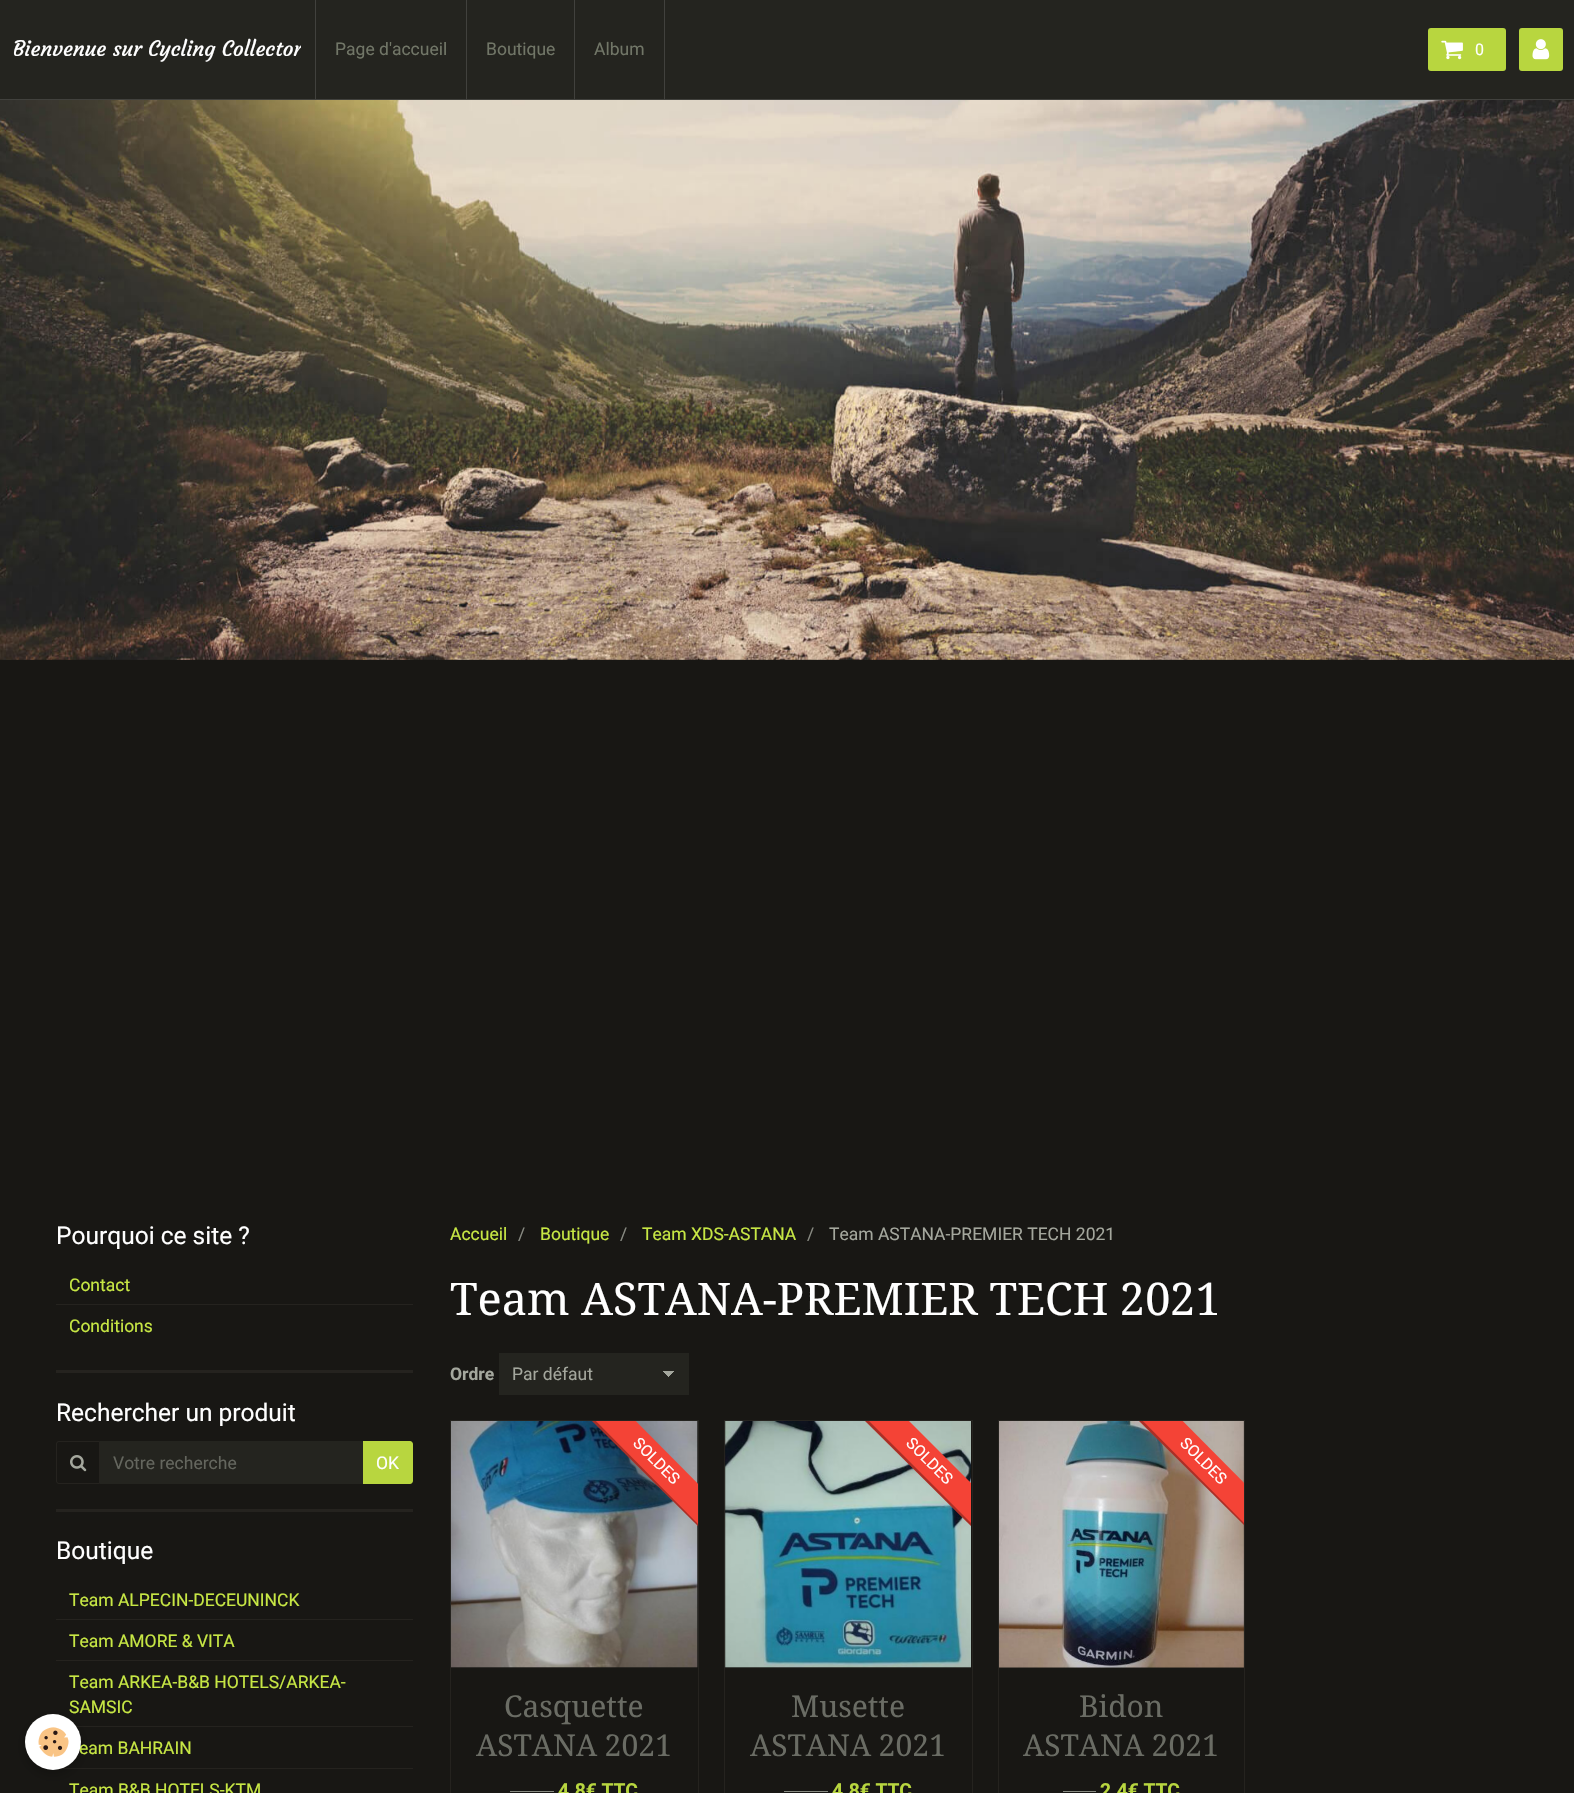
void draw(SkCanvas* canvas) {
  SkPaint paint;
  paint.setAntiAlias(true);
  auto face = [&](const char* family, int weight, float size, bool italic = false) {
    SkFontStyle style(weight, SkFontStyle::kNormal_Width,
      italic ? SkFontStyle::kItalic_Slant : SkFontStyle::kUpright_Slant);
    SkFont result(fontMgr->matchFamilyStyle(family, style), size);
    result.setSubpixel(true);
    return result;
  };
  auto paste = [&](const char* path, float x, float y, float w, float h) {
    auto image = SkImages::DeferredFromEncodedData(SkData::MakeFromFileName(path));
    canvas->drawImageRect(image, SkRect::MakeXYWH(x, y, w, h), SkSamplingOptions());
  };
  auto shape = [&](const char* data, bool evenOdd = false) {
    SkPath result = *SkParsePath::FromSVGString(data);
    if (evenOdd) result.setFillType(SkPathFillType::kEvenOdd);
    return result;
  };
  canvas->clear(0xff181714);
  {
    const struct { float x, y, w, h; SkColor color; } items[] = {
      {0, 0, 1574, 99, 0xff24241f},
      {0, 99, 1574, 1, 0xff41413d},
      {466, 0, 1, 99, 0xff41413d},
      {315, 0, 1, 99, 0xff41413d},
      {574, 0, 1, 99, 0xff41413d},
      {664, 0, 1, 99, 0xff41413d},
    };
    for (auto [x, y, w, h, color] : items) {
      paint.setColor(color);
      canvas->drawRect(SkRect::MakeXYWH(x, y, w, h), paint);
    }
  }
  paint.setColor(0xffb8d63f);
  canvas->drawRoundRect(SkRect::MakeXYWH(1428, 28, 78, 43), 3, 3, paint);
  paste("img/1.png", 1441, 40, 22, 20);
  canvas->drawRoundRect(SkRect::MakeXYWH(1519, 28, 44, 43), 3, 3, paint);
  paste("img/2.png", 1532, 39, 18, 21);
  paste("img/3.png", 0, 100, 1574, 560);
  paint.setColor(0xff25231f);
  canvas->drawRect(SkRect::MakeXYWH(76, 1726, 337, 1), paint);
  canvas->drawRect(SkRect::MakeXYWH(56, 1768, 357, 1), paint);
  paint.setColor(0x3d000000);
  paint.setMaskFilter(SkMaskFilter::MakeBlur(kNormal_SkBlurStyle, 6));
  canvas->drawRoundRect(SkRect::MakeXYWH(25, 1718, 56, 56), 28, 28, paint);
  paint.setMaskFilter(nullptr);
  {
    const struct { float x, y, w, h; SkColor color; } items[] = {
      {56, 1370, 357, 3, 0xff25231f},
      {56, 1304, 357, 1, 0xff25231f},
      {56, 1509, 357, 3, 0xff25231f},
    };
    for (auto [x, y, w, h, color] : items) {
      paint.setColor(color);
      canvas->drawRect(SkRect::MakeXYWH(x, y, w, h), paint);
    }
  }
  paint.setStroke(true);
  paint.setStrokeWidth(1);
  canvas->drawPath(shape("M59 1441.5H99.5V1483.5H59C57.5 1483.5 56.5 1482.5 56.5 1481V1444C56.5 1442.5 57.5 1441.5 59 1441.5Z"), paint);
  paste("img/5.png", 70, 1455, 17, 17);
  paint.setStroke(false);
  paint.setColor(0xff24241f);
  canvas->drawRect(SkRect::MakeXYWH(100, 1441, 263, 43), paint);
  paint.setColor(0xffb8d63f);
  canvas->drawPath(shape("M363 1441H410C411.5 1441 413 1442.5 413 1444V1481C413 1482.5 411.5 1484 410 1484H363Z"), paint);
  {
    const struct { float x, y, w, h; SkColor color; } items[] = {
      {56, 1619, 357, 1, 0xff25231f},
      {56, 1660, 357, 1, 0xff25231f},
      {499, 1353, 190, 42, 0xff24241f},
    };
    for (auto [x, y, w, h, color] : items) {
      paint.setColor(color);
      canvas->drawRect(SkRect::MakeXYWH(x, y, w, h), paint);
    }
  }
  {
    const SkColor colors[] = {0xffa4a79d, 0xff24241f};
    const float stops[] = {0.5f, 0.5f};
    const SkPoint ends[] = {{669, 1371}, {675, 1377}};
    paint.setShader(SkGradientShader::MakeLinear(ends, colors, stops, 2, SkTileMode::kClamp));
    paint.setAlpha(255);
  }
  canvas->drawRect(SkRect::MakeXYWH(669, 1371, 6, 7), paint);
  {
    const SkColor colors[] = {0xff24241f, 0xffa4a79d};
    const float stops[] = {0.5f, 0.5f};
    const SkPoint ends[] = {{663, 1377}, {669, 1371}};
    paint.setShader(SkGradientShader::MakeLinear(ends, colors, stops, 2, SkTileMode::kClamp));
    paint.setAlpha(255);
  }
  canvas->drawRect(SkRect::MakeXYWH(663, 1371, 6, 7), paint);
  paint.setStroke(true);
  paint.setShader(nullptr);
  paint.setColor(0xff25231f);
  canvas->drawRect(SkRect::MakeXYWH(450.5f, 1420.5f, 248, 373), paint);
  paste("img/6.png", 451, 1421, 247, 247);
  canvas->save();
  canvas->clipRect(SkRect::MakeXYWH(573, 1421, 125, 125));
  paint.setStroke(false);
  paint.setColor(0xfff44336);
  canvas->drawPath(shape("M604 1389L727 1513L706 1534L582 1411Z"), paint);
  paint.setColor(0x4d000000);
  canvas->drawPath(shape("M584 1409L707 1533L706 1534L582 1411Z"), paint);
  canvas->restore();
  paint.setColor(0xcca4a79d);
  canvas->drawRect(SkRect::MakeXYWH(510, 1791, 44, 1), paint);
  paint.setStroke(true);
  paint.setColor(0xff25231f);
  canvas->drawRect(SkRect::MakeXYWH(724.5f, 1420.5f, 248, 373), paint);
  paste("img/7.png", 724, 1421, 247, 247);
  canvas->save();
  canvas->clipRect(SkRect::MakeXYWH(846, 1421, 125, 125));
  paint.setStroke(false);
  paint.setColor(0xfff44336);
  canvas->drawPath(shape("M877 1389L1001 1513L979 1534L855 1411Z"), paint);
  paint.setColor(0x4d000000);
  canvas->drawPath(shape("M857 1409L981 1533L979 1534L855 1411Z"), paint);
  canvas->restore();
  paint.setColor(0xcca4a79d);
  canvas->drawRect(SkRect::MakeXYWH(784, 1791, 44, 1), paint);
  paint.setStroke(true);
  paint.setColor(0xff25231f);
  canvas->drawRect(SkRect::MakeXYWH(998.5f, 1420.5f, 246, 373), paint);
  paste("img/8.png", 999, 1421, 245, 247);
  canvas->save();
  canvas->clipRect(SkRect::MakeXYWH(1119, 1421, 125, 125));
  paint.setStroke(false);
  paint.setColor(0xfff44336);
  canvas->drawPath(shape("M1151 1389L1274 1513L1253 1534L1129 1411Z"), paint);
  paint.setColor(0x4d000000);
  canvas->drawPath(shape("M1131 1409L1254 1533L1253 1534L1129 1411Z"), paint);
  canvas->restore();
  paint.setColor(0xcca4a79d);
  canvas->drawRect(SkRect::MakeXYWH(1063, 1791, 33, 1), paint);
  auto f0 = face("Courgette", 400, 21);
  paint.setColor(0xffffffff);
  canvas->drawString("Bienvenue sur", 13, 56, f0, paint);
  canvas->save();
  canvas->clipRect(SkRect::MakeXYWH(13, 35, 288, 29));
  canvas->drawString("Cycling Collector", 148, 56, f0, paint);
  canvas->restore();
  auto f1 = face("Roboto", 400, 17.5f);
  paint.setColor(0xff717667);
  {
    const struct { const char* s; float x, y; } items[] = {
      {"Page d'accueil", 335, 55},
      {"Boutique", 486, 55},
      {"Album", 594, 55},
    };
    for (auto [s, x, y] : items) {
      canvas->drawString(s, x, y, f1, paint);
    }
  }
  auto f2 = face("Roboto", 400, 16);
  paint.setColor(0xffffffff);
  canvas->drawString("0", 1475, 55, f2, paint);
  auto f3 = face("Roboto", 400, 24.5f);
  canvas->drawString("Pourquoi ce site ?", 56, 1244, f3, paint);
  paint.setColor(0xffc7e744);
  canvas->drawString("Contact", 69, 1291, f1, paint);
  canvas->drawString("Conditions", 69, 1332, f1, paint);
  paint.setColor(0xffffffff);
  canvas->drawString("Rechercher un produit", 56, 1421, f3, paint);
  paint.setColor(0xff64665e);
  canvas->drawString("Votre recherche", 113, 1469, f1, paint);
  paint.setColor(0xffffffff);
  canvas->drawString("OK", 376, 1469, f1, paint);
  canvas->drawString("Boutique", 56, 1559, f3, paint);
  paint.setColor(0xffc7e744);
  {
    const struct { const char* s; float x, y; } items[] = {
      {"Team ALPECIN-DECEUNINCK", 69, 1606},
      {"Team AMORE & VITA", 69, 1647},
      {"Team ARKEA-B&B HOTELS/ARKEA-", 69, 1688},
      {"SAMSIC", 69, 1713},
      {"eam BAHRAIN", 79, 1754},
    };
    for (auto [s, x, y] : items) {
      canvas->drawString(s, x, y, f1, paint);
    }
  }
  paint.setColor(0xffffffff);
  canvas->drawCircle(53, 1742, 28, paint);
  paste("img/4.png", 38, 1727, 31, 30);
  paint.setColor(0xffc7e744);
  canvas->drawString("Team B&B HOTELS-KTM", 69, 1796, f1, paint);
  canvas->drawString("Accueil", 450, 1240, f1, paint);
  paint.setColor(0xff888a82);
  canvas->drawString("/", 518, 1240, f1, paint);
  paint.setColor(0xffc7e744);
  canvas->drawString("Boutique", 540, 1240, f1, paint);
  paint.setColor(0xff888a82);
  canvas->drawString("/", 620, 1240, f1, paint);
  paint.setColor(0xffc7e744);
  canvas->drawString("Team XDS-ASTANA", 642, 1240, f1, paint);
  paint.setColor(0xff888a82);
  canvas->drawString("/", 807, 1240, f1, paint);
  paint.setColor(0xffa4a79d);
  canvas->drawString("Team ASTANA-PREMIER TECH 2021", 829, 1240, f1, paint);
  auto f4 = face("Droid Serif", 400, 45);
  paint.setColor(0xffffffff);
  canvas->drawString("Team ASTANA-PREMIER TECH 2021", 450, 1315, f4, paint);
  auto f5 = face("Roboto", 700, 17.5f);
  paint.setColor(0xffa4a79d);
  canvas->drawString("Ordre", 450, 1380, f5, paint);
  canvas->drawString("Par défaut", 512, 1380, f1, paint);
  paint.setColor(0xffffffff);
  canvas->save();
  canvas->rotate(45, 632, 1444);
  canvas->drawString("SOLDES", 632, 1444, f2, paint);
  canvas->restore();
  auto f6 = face("Droid Serif", 400, 30);
  paint.setColor(0xff6a6c64);
  canvas->drawString("Casquette", 504, 1717, f6, paint);
  canvas->drawString("ASTANA 2021", 476, 1756, f6, paint);
  auto f7 = face("Roboto", 700, 19.25f);
  paint.setColor(0xffb8d63f);
  canvas->drawString("4.8€ TTC", 558, 1797, f7, paint);
  paint.setColor(0xffffffff);
  canvas->save();
  canvas->rotate(45, 905, 1444);
  canvas->drawString("SOLDES", 905, 1444, f2, paint);
  canvas->restore();
  paint.setColor(0xff6a6c64);
  canvas->drawString("Musette", 791, 1717, f6, paint);
  canvas->drawString("ASTANA 2021", 750, 1756, f6, paint);
  paint.setColor(0xffb8d63f);
  canvas->drawString("4.8€ TTC", 832, 1797, f7, paint);
  paint.setColor(0xffffffff);
  canvas->save();
  canvas->rotate(45, 1179, 1444);
  canvas->drawString("SOLDES", 1179, 1444, f2, paint);
  canvas->restore();
  paint.setColor(0xff6a6c64);
  canvas->drawString("Bidon", 1079, 1717, f6, paint);
  canvas->drawString("ASTANA 2021", 1023, 1756, f6, paint);
  paint.setColor(0xffb8d63f);
  canvas->drawString("2.4€ TTC", 1100, 1797, f7, paint);
}
